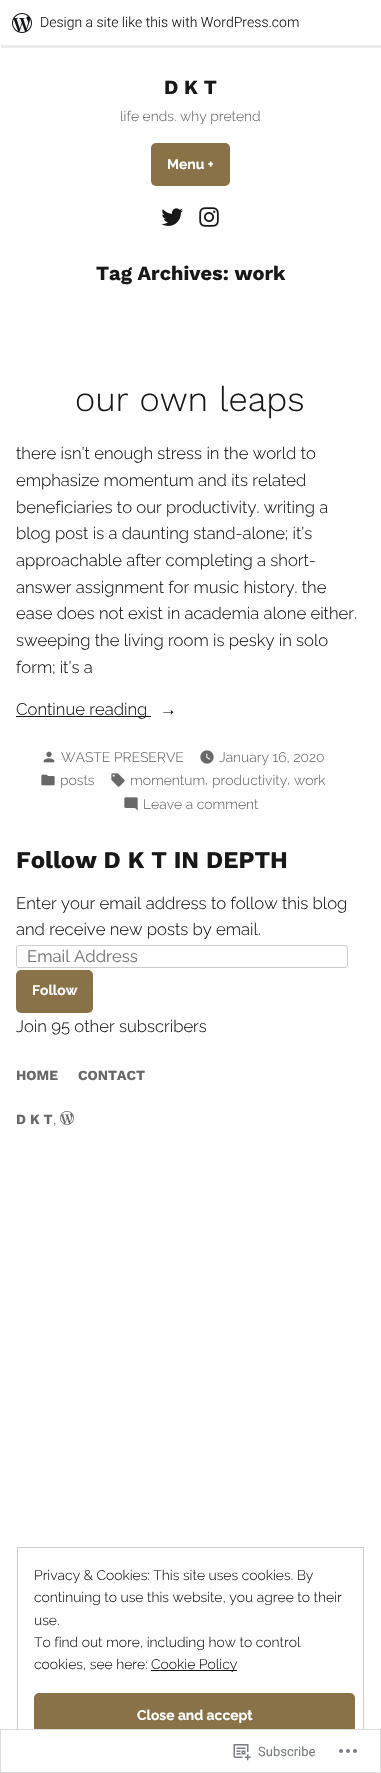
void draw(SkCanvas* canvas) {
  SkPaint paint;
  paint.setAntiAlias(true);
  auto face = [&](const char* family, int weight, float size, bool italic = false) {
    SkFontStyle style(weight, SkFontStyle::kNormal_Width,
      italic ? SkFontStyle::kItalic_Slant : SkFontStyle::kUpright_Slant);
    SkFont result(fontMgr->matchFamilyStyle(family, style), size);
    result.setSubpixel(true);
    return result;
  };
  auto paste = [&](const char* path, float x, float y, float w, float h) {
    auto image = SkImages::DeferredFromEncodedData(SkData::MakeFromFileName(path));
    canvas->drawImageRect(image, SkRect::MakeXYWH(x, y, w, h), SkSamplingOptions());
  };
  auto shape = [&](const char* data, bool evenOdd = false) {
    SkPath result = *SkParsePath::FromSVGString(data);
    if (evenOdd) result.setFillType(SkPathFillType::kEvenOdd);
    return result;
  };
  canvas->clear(0xffffffff);
  paint.setColor(0x14000000);
  canvas->drawPath(shape("M1 45V48H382V3H381V45Z"), paint);
  paste("img/1.png", 12, 13, 20, 20);
  paint.setColor(0xff897248);
  canvas->drawRoundRect(SkRect::MakeXYWH(151, 143, 79, 43), 5, 5, paint);
  paste("img/2.png", 161, 208, 22, 18);
  paste("img/3.png", 199, 207, 20, 20);
  paint.setColor(0xff181818);
  canvas->drawRect(SkRect::MakeXYWH(16, 716, 135, 1), paint);
  paste("img/4.png", 43, 751, 12, 12);
  paste("img/5.png", 200, 750, 14, 14);
  paste("img/6.png", 41, 774, 14, 12);
  paste("img/7.png", 111, 773, 14, 14);
  paste("img/8.png", 124, 797, 14, 14);
  paint.setStroke(true);
  paint.setStrokeWidth(1);
  paint.setColor(0xffcccccc);
  canvas->drawRoundRect(SkRect::MakeXYWH(16.5f, 945.5f, 331, 22), 2.5f, 2.5f, paint);
  paint.setStroke(false);
  paint.setColor(0xff897248);
  canvas->drawRoundRect(SkRect::MakeXYWH(16, 970, 77, 43), 5, 5, paint);
  paste("img/9.png", 60, 1111, 14, 14);
  paint.setStroke(true);
  paint.setColor(0xffcccccc);
  canvas->drawRect(SkRect::MakeXYWH(17.5f, 1547.5f, 346, 208), paint);
  paint.setStroke(false);
  paint.setColor(0xff181818);
  canvas->drawRect(SkRect::MakeXYWH(151, 1670, 86, 1), paint);
  paint.setColor(0xff897248);
  canvas->drawRoundRect(SkRect::MakeXYWH(34, 1693, 321, 46), 5, 5, paint);
  paint.setColor(0xfaffffff);
  canvas->drawRect(SkRect::MakeXYWH(17, 1729, 347, 27), paint);
  paint.setStroke(true);
  paint.setColor(0xfadcdcde);
  canvas->drawRect(SkRect::MakeXYWH(0.5f, 1729.5f, 380, 43), paint);
  paste("img/10.png", 233, 1744, 18, 17);
  paste("img/11.png", 339, 1749, 18, 4);
  auto f0 = face("Roboto", 300, 14);
  paint.setStroke(false);
  paint.setColor(0xff181818);
  canvas->drawString("Design a site like this with WordPress.com", 40, 27, f0, paint);
  auto f1 = face("Work Sans", 700, 20);
  canvas->drawString("D K T", 164, 94, f1, paint);
  auto f2 = face("Raleway", 300, 13.9f);
  paint.setColor(0xff686868);
  canvas->drawString("life ends. why pretend", 120, 121, f2, paint);
  auto f3 = face("Raleway", 700, 13.9f);
  paint.setColor(0xffffffff);
  canvas->drawString("Menu +", 167, 169, f3, paint);
  paint.setColor(0xff181818);
  canvas->drawString("Tag Archives: work", 96, 280, f1, paint);
  auto f4 = face("Work Sans", 300, 34.5f);
  canvas->drawString("our own leaps", 75, 411, f4, paint);
  auto f5 = face("Raleway", 300, 16.7f);
  {
    const struct { const char* s; float x, y; } items[] = {
      {"there isn’t enough stress in the world to", 16, 459},
      {"emphasize momentum and its related", 16, 486},
      {"beneficiaries to our productivity. writing a", 16, 513},
      {"blog post is a daunting stand-alone; it’s", 16, 539},
      {"approachable after completing a short-", 16, 566},
      {"answer assignment for music history. the", 16, 593},
      {"ease does not exist in academia alone either.", 16, 619},
      {"sweeping the living room is pesky in solo", 16, 646},
      {"form; it’s a", 16, 673},
      {"Continue reading", 16, 715},
    };
    for (auto [s, x, y] : items) {
      canvas->drawString(s, x, y, f5, paint);
    }
  }
  auto f6 = face("Liberation Serif", 400, 16.7f);
  canvas->drawString("→", 160, 715, f6, paint);
  paint.setColor(0xff686868);
  {
    const struct { const char* s; float x, y; } items[] = {
      {"WASTE PRESERVE", 61, 762},
      {"January 16, 2020", 219, 762},
      {"posts", 60, 785},
      {"momentum", 130, 785},
      {",", 205, 784},
      {"productivity", 212, 785},
      {",", 287, 784},
      {"work", 294, 785},
      {"Leave a comment", 143, 809},
    };
    for (auto [s, x, y] : items) {
      canvas->drawString(s, x, y, f2, paint);
    }
  }
  auto f7 = face("Work Sans", 700, 24);
  paint.setColor(0xff181818);
  canvas->drawString("Follow D K T IN DEPTH", 16, 868, f7, paint);
  canvas->drawString("Enter your email address to follow this blog", 16, 909, f5, paint);
  canvas->drawString("and receive new posts by email.", 16, 935, f5, paint);
  auto f8 = face("Raleway", 400, 16.7f);
  paint.setColor(0xff757575);
  canvas->drawString("Email Address", 27, 962, f8, paint);
  paint.setColor(0xffffffff);
  canvas->drawString("Follow", 32, 995, f3, paint);
  paint.setColor(0xff181818);
  canvas->drawString("Join 95 other subscribers", 16, 1032, f5, paint);
  auto f9 = face("Work Sans", 700, 13.9f);
  paint.setColor(0xff686868);
  {
    const struct { const char* s; float x, y; } items[] = {
      {"HOME", 16, 1080},
      {"CONTACT", 78, 1080},
      {"D K T", 16, 1124},
    };
    for (auto [s, x, y] : items) {
      canvas->drawString(s, x, y, f9, paint);
    }
  }
  auto f10 = face("Work Sans", 300, 13.9f);
  canvas->drawString(",", 53, 1124, f10, paint);
  paint.setColor(0xff181818);
  {
    const struct { const char* s; float x, y; } items[] = {
      {"Privacy & Cookies: This site uses cookies. By", 34, 1580},
      {"continuing to use this website, you agree to their", 34, 1602},
      {"use.", 34, 1625},
      {"To find out more, including how to control", 34, 1647},
      {"cookies, see here:", 34, 1669},
      {"Cookie Policy", 151, 1669},
    };
    for (auto [s, x, y] : items) {
      canvas->drawString(s, x, y, f2, paint);
    }
  }
  paint.setColor(0xffffffff);
  canvas->drawString("Close and accept", 137, 1720, f3, paint);
  auto f11 = face("Roboto", 400, 13);
  paint.setColor(0xff7b7f84);
  canvas->drawString("Subscribe", 258, 1756, f11, paint);
}
